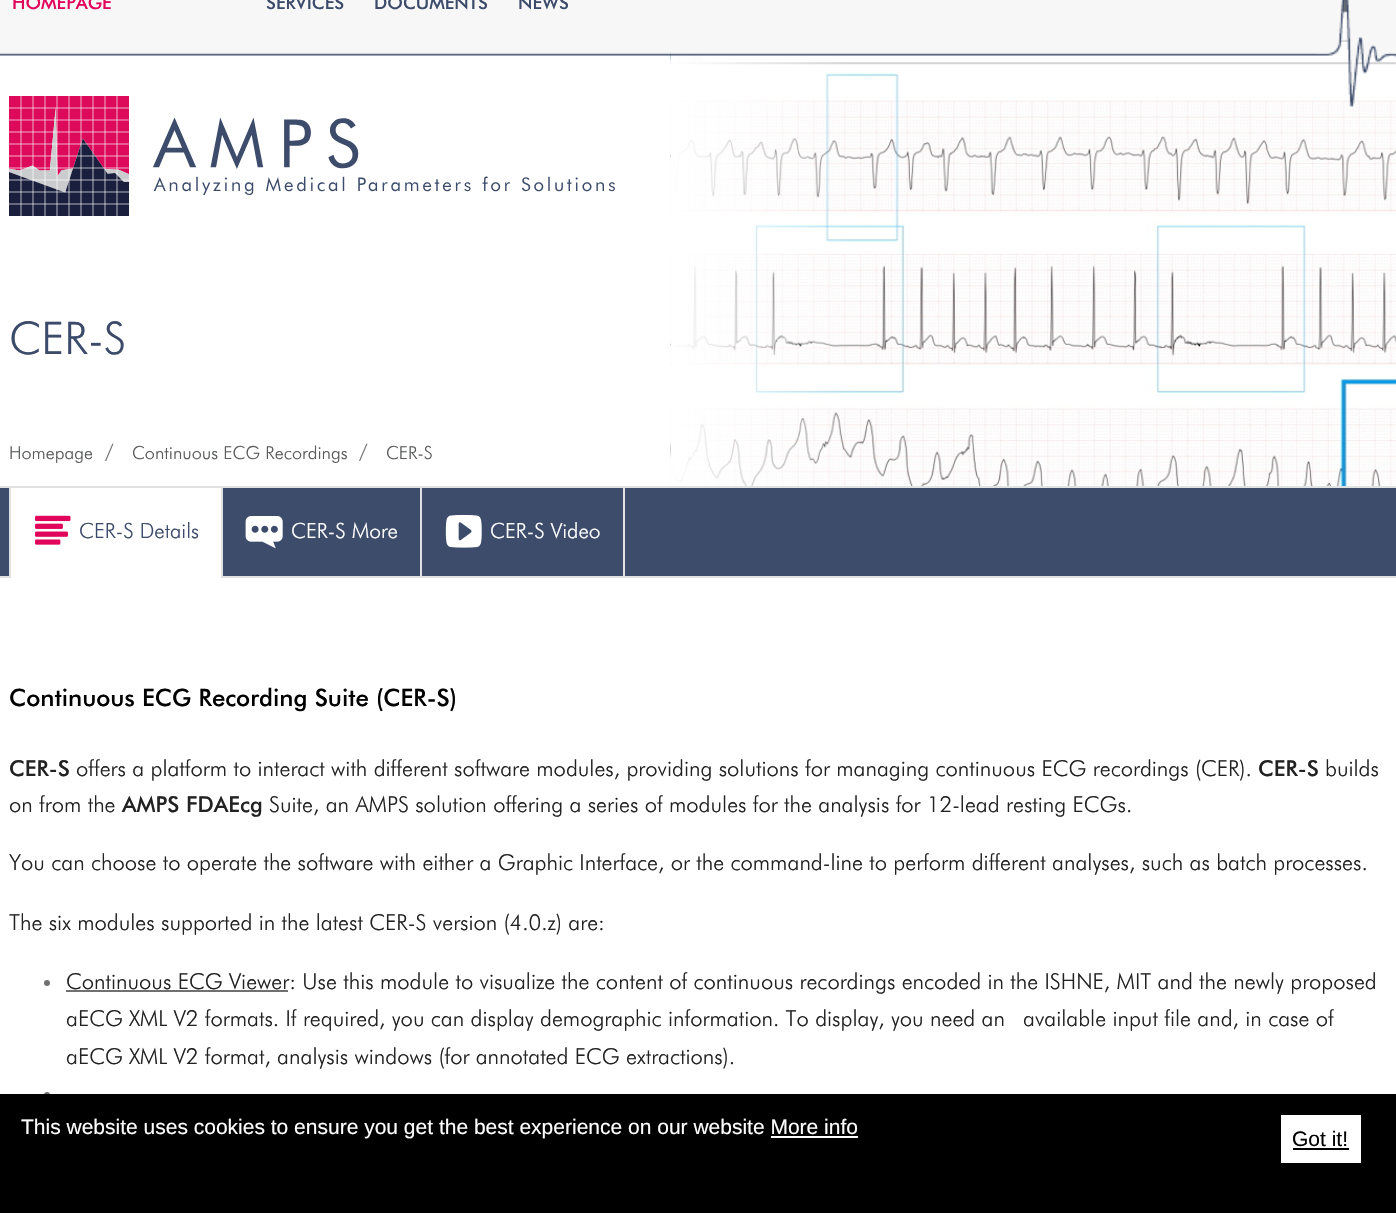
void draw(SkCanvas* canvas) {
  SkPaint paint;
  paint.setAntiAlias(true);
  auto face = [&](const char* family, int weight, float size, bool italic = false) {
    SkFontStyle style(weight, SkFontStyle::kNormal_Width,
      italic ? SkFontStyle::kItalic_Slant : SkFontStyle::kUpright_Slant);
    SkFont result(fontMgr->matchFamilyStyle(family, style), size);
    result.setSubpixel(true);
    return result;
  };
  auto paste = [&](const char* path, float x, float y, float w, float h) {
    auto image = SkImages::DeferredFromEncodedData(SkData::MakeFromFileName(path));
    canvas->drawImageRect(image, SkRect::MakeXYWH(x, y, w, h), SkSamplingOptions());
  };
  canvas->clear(0xffffffff);
  paste("img/5.png", 670, 0, 726, 486);
  paste("img/1.png", 0, 0, 1137, 56);
  paste("img/2.png", 1137, 0, 180, 56);
  paste("img/3.png", 1317, 0, 79, 107);
  paste("img/4.png", 9, 96, 606, 120);
  {
    const struct { float x, y, w, h; SkColor color; } items[] = {
      {0, 488, 1396, 88, 0xff3d4c6b},
      {0, 486, 1396, 2, 0xffe0e1e2},
      {0, 576, 1396, 2, 0xffe0e1e2},
      {9, 488, 2, 88, 0xffe0e1e2},
      {11, 488, 210, 90, 0xffffffff},
      {221, 488, 2, 88, 0xffe0e1e2},
    };
    for (auto [x, y, w, h, color] : items) {
      paint.setColor(color);
      canvas->drawRect(SkRect::MakeXYWH(x, y, w, h), paint);
    }
  }
  paste("img/6.png", 35, 515, 36, 30);
  canvas->drawRect(SkRect::MakeXYWH(420, 488, 2, 88), paint);
  paste("img/7.png", 245, 516, 38, 33);
  canvas->drawRect(SkRect::MakeXYWH(623, 488, 2, 88), paint);
  paste("img/8.png", 445, 514, 37, 34);
  paint.setColor(0xff6f7071);
  canvas->drawCircle(47, 983, 3, paint);
  canvas->drawRect(SkRect::MakeXYWH(66, 990, 222, 2), paint);
  canvas->drawCircle(47, 1095, 3, paint);
  {
    const struct { float x, y, w, h; SkColor color; } items[] = {
      {0, 1094, 1396, 119, 0xff000000},
      {1281, 1115, 80, 48, 0xffffffff},
      {1293, 1148, 56, 2, 0xff000000},
      {771, 1136, 87, 2, 0xffffffff},
    };
    for (auto [x, y, w, h, color] : items) {
      paint.setColor(color);
      canvas->drawRect(SkRect::MakeXYWH(x, y, w, h), paint);
    }
  }
  auto f0 = face("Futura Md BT", 500, 18);
  paint.setColor(0xffe1055b);
  canvas->drawString("HOMEPAGE", 12, 9, f0, paint);
  paint.setColor(0xff3c4b6a);
  {
    const struct { const char* s; float x, y; } items[] = {
      {"SERVICES", 266, 9},
      {"DOCUMENTS", 374, 9},
      {"NEWS", 518, 9},
    };
    for (auto [s, x, y] : items) {
      canvas->drawString(s, x, y, f0, paint);
    }
  }
  auto f1 = face("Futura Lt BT", 300, 45);
  canvas->drawString("CER-S", 9, 354, f1, paint);
  auto f2 = face("Futura Lt BT", 300, 18);
  paint.setColor(0xff595a5b);
  canvas->drawString("Homepage", 9, 459, f2, paint);
  auto f3 = face("Futura Lt BT", 300, 21);
  paint.setColor(0xff6f7071);
  canvas->drawString("/", 105, 459, f3, paint);
  paint.setColor(0xff595a5b);
  canvas->drawString("Continuous ECG Recordings", 132, 459, f2, paint);
  paint.setColor(0xff6f7071);
  canvas->drawString("/", 359, 459, f3, paint);
  paint.setColor(0xff595a5b);
  canvas->drawString("CER-S", 386, 459, f2, paint);
  paint.setColor(0xff3c4b6a);
  canvas->drawString("CER-S Details", 79, 538, f3, paint);
  paint.setColor(0xffffffff);
  canvas->drawString("CER-S More", 291, 538, f3, paint);
  canvas->drawString("CER-S Video", 490, 538, f3, paint);
  auto f4 = face("Futura Md BT", 500, 24);
  paint.setColor(0xff000000);
  canvas->drawString("Continuous ECG Recording Suite (CER-S)", 9, 706, f4, paint);
  auto f5 = face("Futura Md BT", 500, 22);
  paint.setColor(0xff222222);
  canvas->drawString("CER-S", 9, 776, f5, paint);
  auto f6 = face("Futura Lt BT", 300, 22);
  canvas->drawString("offers a platform to interact with different software modules, providing solutions for managing continuous ECG recordings (CER).", 76, 776, f6, paint);
  canvas->drawString("CER-S", 1258, 776, f5, paint);
  canvas->drawString("builds", 1325, 776, f6, paint);
  canvas->drawString("on from the", 9, 812, f6, paint);
  canvas->drawString("AMPS FDAEcg", 122, 812, f5, paint);
  {
    const struct { const char* s; float x, y; } items[] = {
      {"Suite, an AMPS solution offering a series of modules for the analysis for 12-lead resting ECGs.", 269, 812},
      {"You can choose to operate the software with either a Graphic Interface, or the command-line to perform different analyses, such as batch processes.", 9, 870},
      {"The six modules supported in the latest CER-S version (4.0.z) are:", 9, 930},
      {"Continuous ECG Viewer: Use this module to visualize the content of continuous recordings encoded in the ISHNE, MIT and the newly proposed", 66, 989},
      {"aECG XML V2 formats. If required, you can display demographic information. To display, you need an", 66, 1026},
      {"available input file and, in case of", 1023, 1026},
      {"aECG XML V2 format, analysis windows (for annotated ECG extractions).", 66, 1064},
    };
    for (auto [s, x, y] : items) {
      canvas->drawString(s, x, y, f6, paint);
    }
  }
  auto f7 = face("Liberation Sans", 400, 21);
  paint.setColor(0xffffffff);
  canvas->drawString("This website uses cookies to ensure you get the best experience on our website More info", 21, 1134, f7, paint);
  paint.setColor(0xff000000);
  canvas->drawString("Got it!", 1292, 1146, f7, paint);
}
